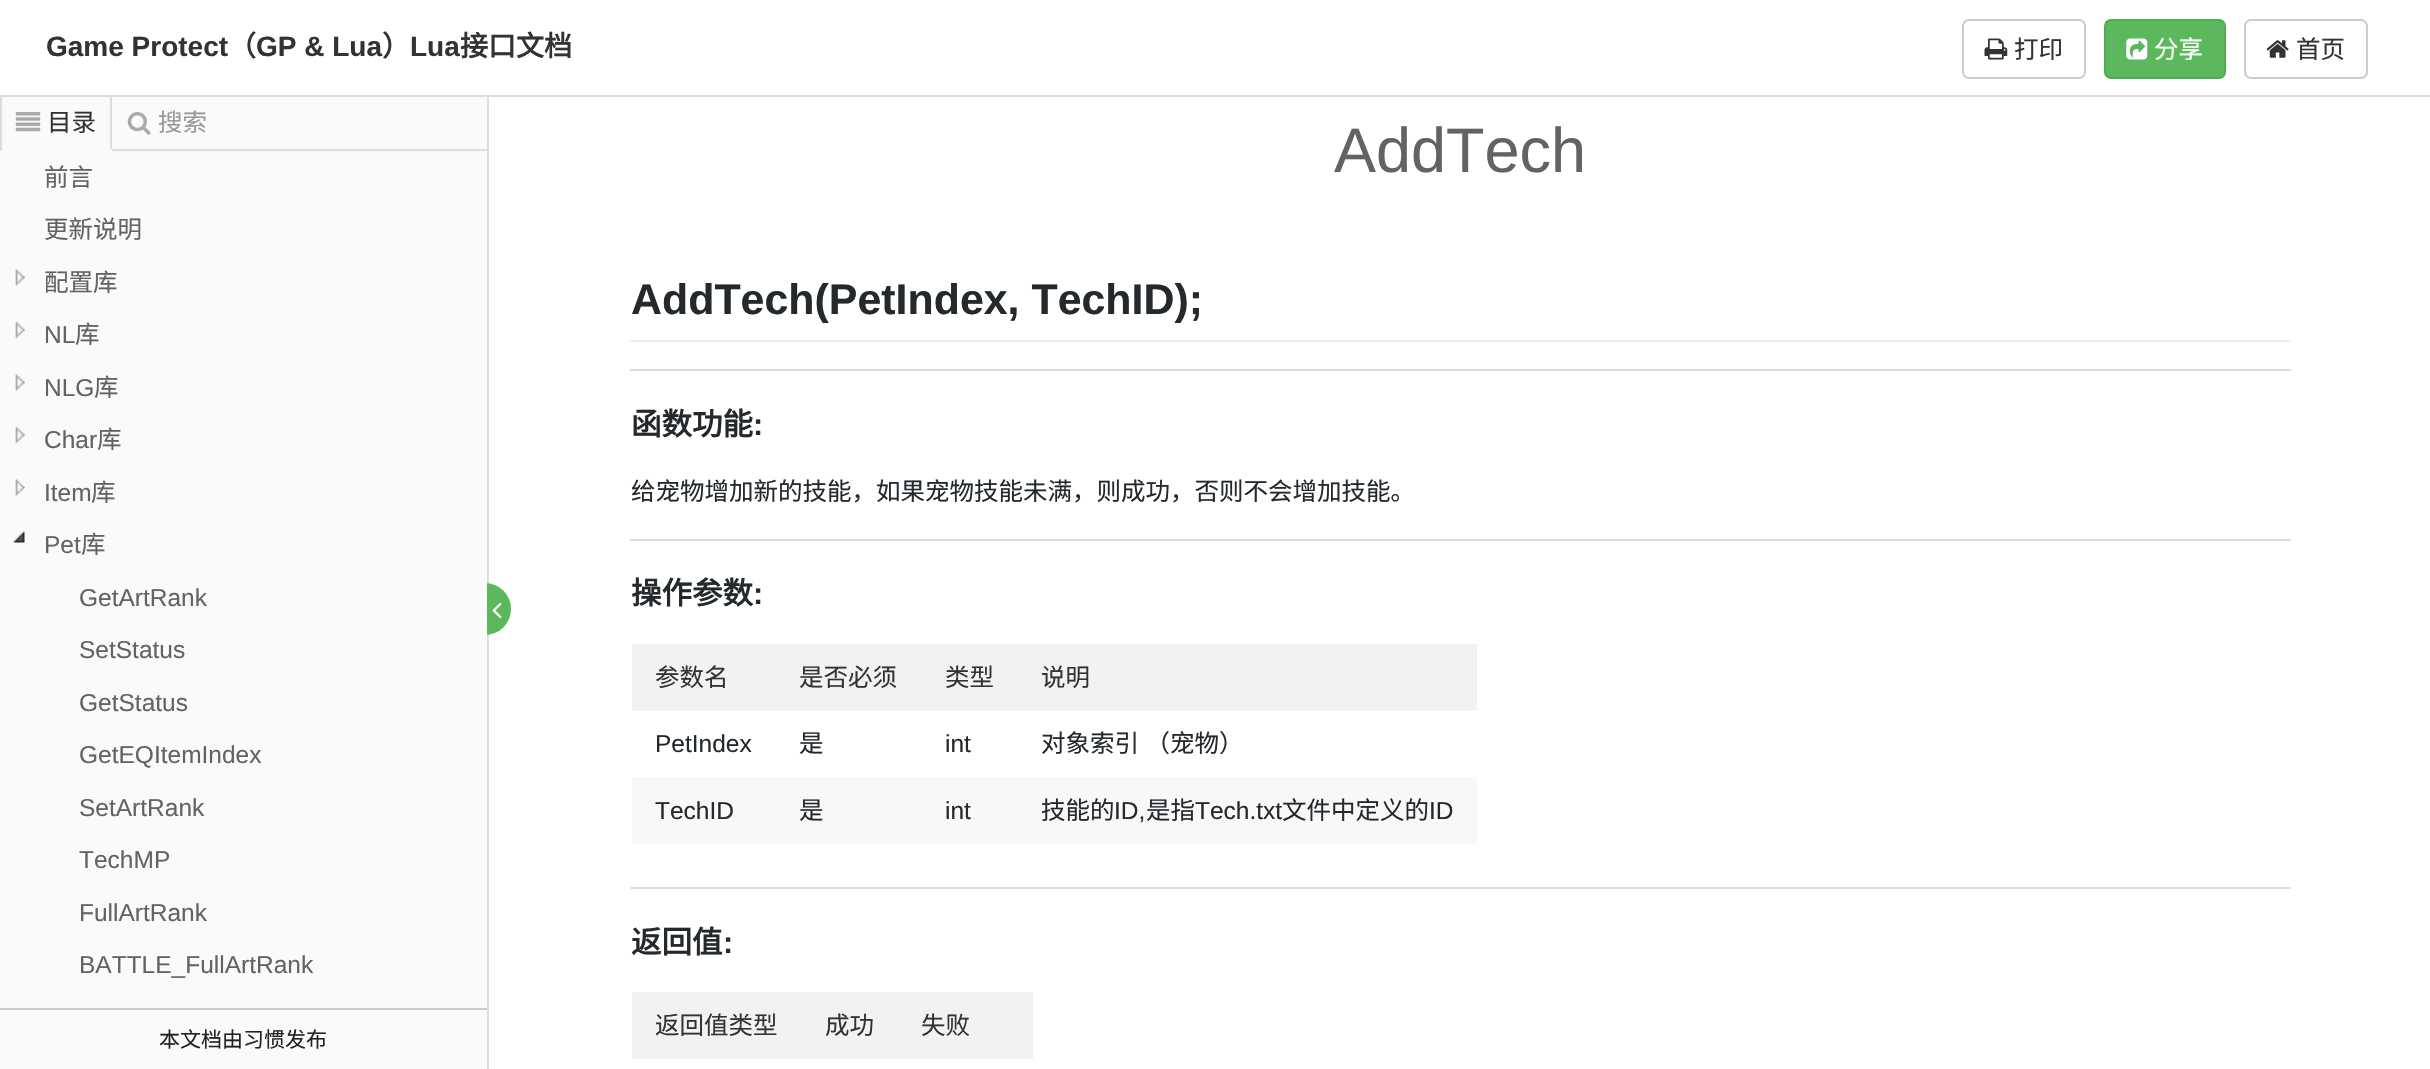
void draw(SkCanvas* canvas) {
  SkPaint paint;
  paint.setAntiAlias(true);
  auto face = [&](const char* family, int weight, float size, bool italic = false) {
    SkFontStyle style(weight, SkFontStyle::kNormal_Width,
      italic ? SkFontStyle::kItalic_Slant : SkFontStyle::kUpright_Slant);
    SkFont result(fontMgr->matchFamilyStyle(family, style), size);
    result.setSubpixel(true);
    return result;
  };
  auto writeSpaced = [&](const char* s, float x, float y, const SkFont& font, const SkPaint& ink, float letter, float word) {
    std::vector<SkGlyphID> glyphs(font.countText(s, strlen(s), SkTextEncoding::kUTF8));
    std::vector<float> xs(glyphs.size());
    font.textToGlyphs(s, strlen(s), SkTextEncoding::kUTF8, glyphs);
    font.getXPos(glyphs, xs, x);
    float extra = 0;
    for (size_t i = 0; i < glyphs.size(); i++) {
      xs[i] += extra;
      extra += letter + word * (glyphs[i] == font.unicharToGlyph(' '));
    }
    canvas->drawTextBlob(SkTextBlob::MakeFromPosHGlyphs(glyphs, xs, y, font), 0, 0, ink);
  };
  auto paste = [&](const char* path, float x, float y, float w, float h) {
    auto image = SkImages::DeferredFromEncodedData(SkData::MakeFromFileName(path));
    canvas->drawImageRect(image, SkRect::MakeXYWH(x, y, w, h), SkSamplingOptions());
  };
  canvas->clear(0xffffffff);
  paint.setStroke(true);
  paint.setStrokeWidth(2);
  paint.setColor(0xffcccccc);
  canvas->drawRoundRect(SkRect::MakeXYWH(1963, 20, 122, 58), 6, 6, paint);
  paste("img/1.png", 1984, 38, 24, 22);
  paint.setStroke(false);
  paint.setColor(0xff5cb85c);
  canvas->drawRoundRect(SkRect::MakeXYWH(2105, 20, 120, 58), 6, 6, paint);
  paint.setStroke(true);
  paint.setColor(0xff4cae4c);
  canvas->drawRoundRect(SkRect::MakeXYWH(2105, 20, 120, 58), 6, 6, paint);
  paste("img/2.png", 2126, 38, 22, 22);
  paint.setColor(0xffcccccc);
  canvas->drawRoundRect(SkRect::MakeXYWH(2245, 20, 122, 58), 6, 6, paint);
  paste("img/3.png", 2266, 40, 23, 18);
  paint.setStroke(false);
  {
    const struct { float x, y, w, h; SkColor color; } items[] = {
      {487, 96, 2, 973, 0xffdddddd},
      {0, 97, 487, 972, 0xfffafafa},
      {110, 96, 2, 55, 0xffdddddd},
      {0, 96, 2, 55, 0xffdddddd},
      {0, 95, 2430, 2, 0xffdddddd},
      {112, 149, 375, 2, 0xffdddddd},
      {110, 149, 2, 2, 0xfffafafa},
    };
    for (auto [x, y, w, h, color] : items) {
      paint.setColor(color);
      canvas->drawRect(SkRect::MakeXYWH(x, y, w, h), paint);
    }
  }
  paste("img/4.png", 15, 112, 26, 20);
  paste("img/5.png", 127, 112, 24, 23);
  paint.setColor(0xff5cb85c);
  canvas->drawCircle(485, 609, 26, paint);
  paint.setColor(0xfffafafa);
  canvas->drawRect(SkRect::MakeXYWH(459, 583, 28, 52), paint);
  paste("img/6.png", 15, 269, 10, 17);
  paste("img/7.png", 15, 321, 10, 18);
  paste("img/6.png", 15, 374, 10, 17);
  paste("img/7.png", 15, 426, 10, 18);
  paste("img/6.png", 15, 479, 10, 17);
  paste("img/8.png", 13, 531, 12, 12);
  paste("img/9.png", 492, 602, 10, 17);
  {
    const struct { float x, y, w, h; SkColor color; } items[] = {
      {0, 1008, 487, 2, 0xffcccccc},
      {630, 340, 1661, 2, 0xffeeeeee},
      {630, 369, 1661, 2, 0xffdddddd},
      {630, 539, 1661, 2, 0xffdddddd},
      {632, 644, 845, 67, 0xfff2f2f2},
      {632, 777, 845, 67, 0xfff8f8f8},
      {630, 887, 1661, 2, 0xffdddddd},
      {632, 992, 401, 67, 0xfff2f2f2},
    };
    for (auto [x, y, w, h, color] : items) {
      paint.setColor(color);
      canvas->drawRect(SkRect::MakeXYWH(x, y, w, h), paint);
    }
  }
  auto f0 = face("Liberation Sans", 700, 28);
  paint.setColor(0xff333333);
  canvas->drawString("Game Protect", 46, 56, f0, paint);
  auto f1 = face("Noto Sans CJK SC", 700, 28);
  canvas->drawString("（", 228, 56, f1, paint);
  canvas->drawString("GP & Lua", 256, 56, f0, paint);
  canvas->drawString("）", 382, 56, f1, paint);
  canvas->drawString("Lua", 410, 56, f0, paint);
  canvas->drawString("接口文档", 460, 56, f1, paint);
  auto f2 = face("Noto Sans CJK SC", 400, 24.5f);
  canvas->drawString("打印", 2014, 58, f2, paint);
  paint.setColor(0xffffffff);
  canvas->drawString("分享", 2154, 58, f2, paint);
  paint.setColor(0xff333333);
  canvas->drawString("首页", 2296, 58, f2, paint);
  canvas->drawString("目录", 47, 131, f2, paint);
  paint.setColor(0xff999999);
  canvas->drawString("搜索", 158, 131, f2, paint);
  paint.setColor(0xff636363);
  {
    const struct { const char* s; float x, y; } items[] = {
      {"前言", 44, 186},
      {"更新说明", 44, 238},
      {"配置库", 44, 291},
    };
    for (auto [s, x, y] : items) {
      canvas->drawString(s, x, y, f2, paint);
    }
  }
  auto f3 = face("Liberation Sans", 400, 24.5f);
  canvas->drawString("NL", 44, 343, f3, paint);
  canvas->drawString("库", 75, 343, f2, paint);
  canvas->drawString("NLG", 44, 396, f3, paint);
  canvas->drawString("库", 94, 396, f2, paint);
  canvas->drawString("Char", 44, 448, f3, paint);
  canvas->drawString("库", 97, 448, f2, paint);
  canvas->drawString("Item", 44, 501, f3, paint);
  canvas->drawString("库", 91, 501, f2, paint);
  canvas->drawString("Pet", 44, 553, f3, paint);
  canvas->drawString("库", 81, 553, f2, paint);
  {
    const struct { const char* s; float x, y; } items[] = {
      {"GetArtRank", 79, 606},
      {"SetStatus", 79, 658},
      {"GetStatus", 79, 711},
      {"GetEQItemIndex", 79, 763},
      {"SetArtRank", 79, 816},
      {"TechMP", 79, 868},
      {"FullArtRank", 79, 921},
      {"BATTLE_FullArtRank", 79, 973},
    };
    for (auto [s, x, y] : items) {
      canvas->drawString(s, x, y, f3, paint);
    }
  }
  auto f4 = face("Noto Sans CJK SC", 400, 21);
  paint.setColor(0xff222222);
  canvas->drawString("本文档由习惯发布", 159, 1047, f4, paint);
  auto f5 = face("Liberation Sans", 400, 63);
  paint.setColor(0xff636363);
  canvas->drawString("AddTech", 1334, 172, f5, paint);
  auto f6 = face("Liberation Sans", 700, 42.9f);
  paint.setColor(0xff24292e);
  canvas->drawString("AddTech(PetIndex, TechID);", 631, 314, f6, paint);
  auto f7 = face("Noto Sans CJK SC", 700, 30.5f);
  canvas->drawString("函数功能", 631, 435, f7, paint);
  auto f8 = face("Liberation Sans", 700, 30.5f);
  canvas->drawString(":", 753, 435, f8, paint);
  canvas->drawString("给宠物增加新的技能，如果宠物技能未满，则成功，否则不会增加技能。", 631, 500, f2, paint);
  canvas->drawString("操作参数", 631, 604, f7, paint);
  canvas->drawString(":", 753, 604, f8, paint);
  paint.setColor(0xff333333);
  {
    const struct { const char* s; float x, y; } items[] = {
      {"参数名", 655, 686},
      {"是否必须", 799, 686},
      {"类型", 945, 686},
      {"说明", 1041, 686},
    };
    for (auto [s, x, y] : items) {
      canvas->drawString(s, x, y, f2, paint);
    }
  }
  paint.setColor(0xff24292e);
  canvas->drawString("PetIndex", 655, 752, f3, paint);
  canvas->drawString("是", 799, 752, f2, paint);
  canvas->drawString("int", 945, 752, f3, paint);
  writeSpaced("对象索引 （宠物）", 1041, 752, f2, paint, 0, 1);
  canvas->drawString("TechID", 655, 819, f3, paint);
  canvas->drawString("是", 799, 819, f2, paint);
  canvas->drawString("int", 945, 819, f3, paint);
  canvas->drawString("技能的", 1041, 819, f2, paint);
  canvas->drawString("ID,", 1114, 819, f3, paint);
  canvas->drawString("是指", 1146, 819, f2, paint);
  canvas->drawString("Tech.txt", 1195, 819, f3, paint);
  canvas->drawString("文件中定义的", 1282, 819, f2, paint);
  canvas->drawString("ID", 1429, 819, f3, paint);
  canvas->drawString("返回值", 631, 953, f7, paint);
  canvas->drawString(":", 723, 953, f8, paint);
  paint.setColor(0xff333333);
  {
    const struct { const char* s; float x, y; } items[] = {
      {"返回值类型", 655, 1034},
      {"成功", 825, 1034},
      {"失败", 921, 1034},
    };
    for (auto [s, x, y] : items) {
      canvas->drawString(s, x, y, f2, paint);
    }
  }
}
